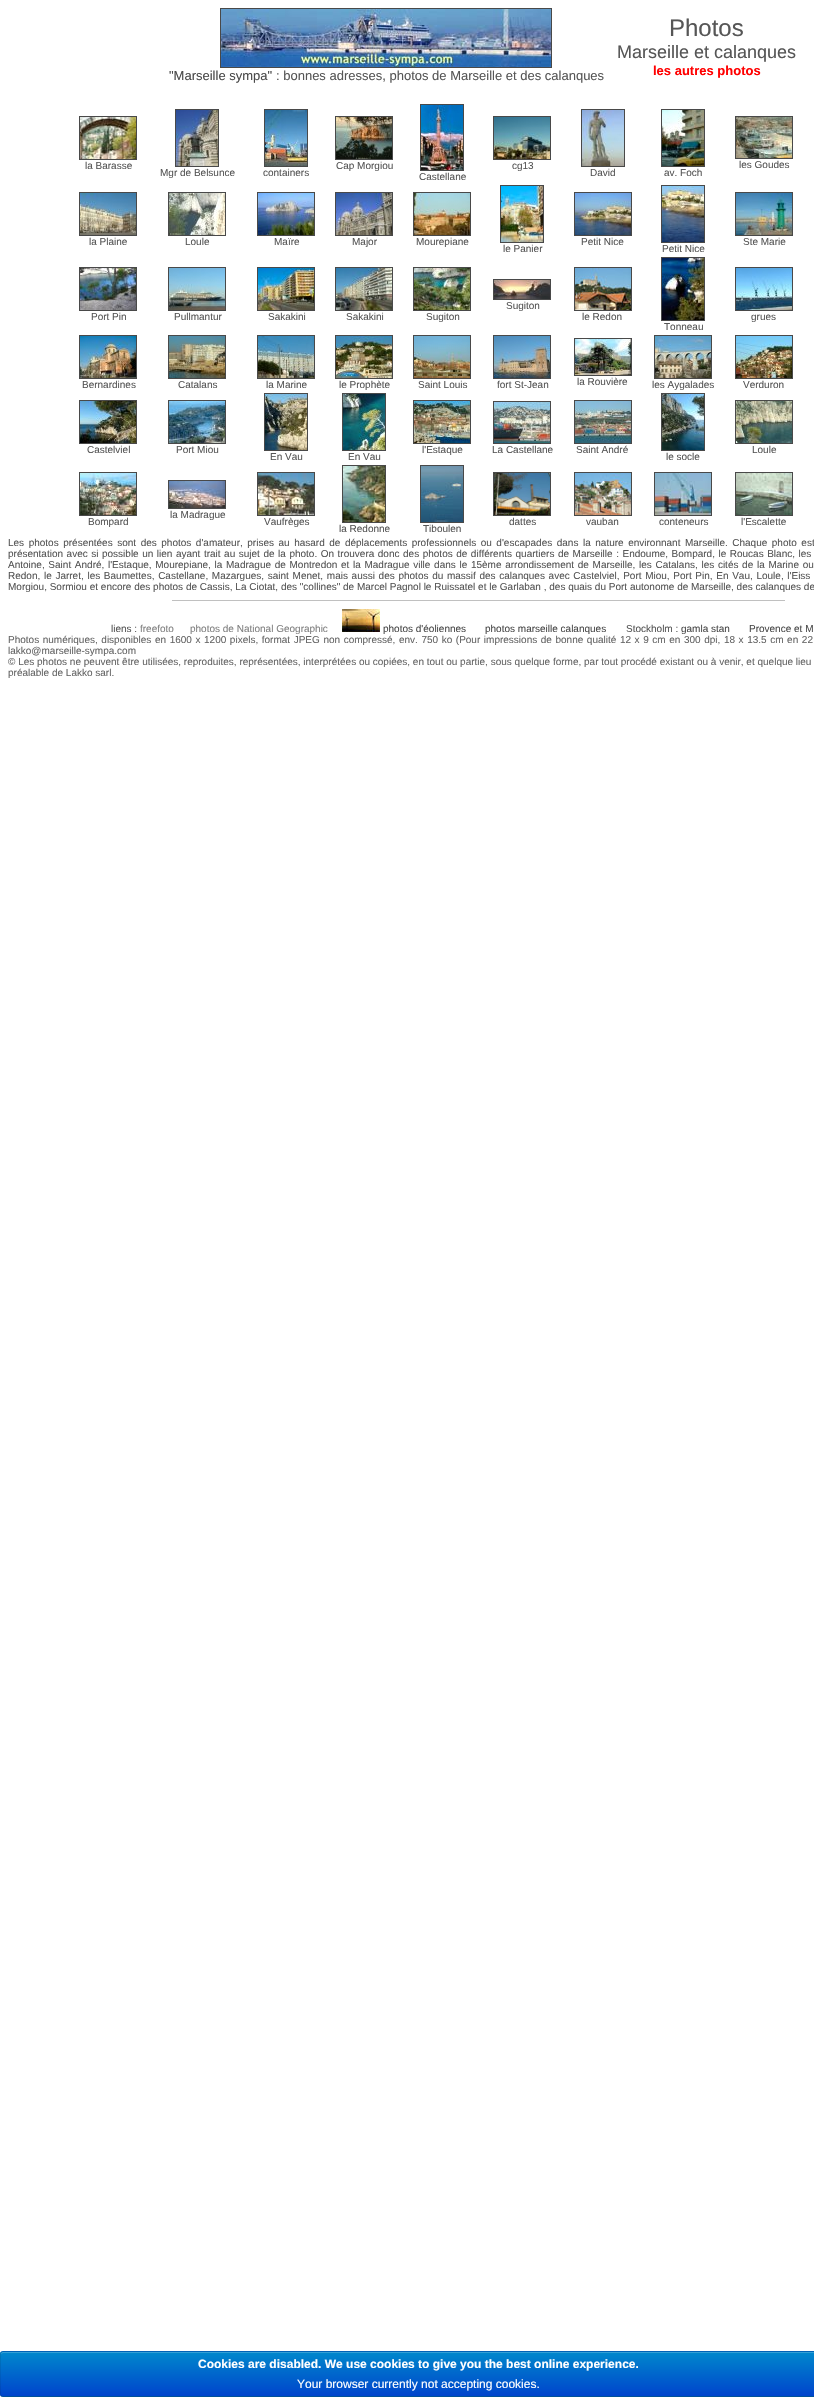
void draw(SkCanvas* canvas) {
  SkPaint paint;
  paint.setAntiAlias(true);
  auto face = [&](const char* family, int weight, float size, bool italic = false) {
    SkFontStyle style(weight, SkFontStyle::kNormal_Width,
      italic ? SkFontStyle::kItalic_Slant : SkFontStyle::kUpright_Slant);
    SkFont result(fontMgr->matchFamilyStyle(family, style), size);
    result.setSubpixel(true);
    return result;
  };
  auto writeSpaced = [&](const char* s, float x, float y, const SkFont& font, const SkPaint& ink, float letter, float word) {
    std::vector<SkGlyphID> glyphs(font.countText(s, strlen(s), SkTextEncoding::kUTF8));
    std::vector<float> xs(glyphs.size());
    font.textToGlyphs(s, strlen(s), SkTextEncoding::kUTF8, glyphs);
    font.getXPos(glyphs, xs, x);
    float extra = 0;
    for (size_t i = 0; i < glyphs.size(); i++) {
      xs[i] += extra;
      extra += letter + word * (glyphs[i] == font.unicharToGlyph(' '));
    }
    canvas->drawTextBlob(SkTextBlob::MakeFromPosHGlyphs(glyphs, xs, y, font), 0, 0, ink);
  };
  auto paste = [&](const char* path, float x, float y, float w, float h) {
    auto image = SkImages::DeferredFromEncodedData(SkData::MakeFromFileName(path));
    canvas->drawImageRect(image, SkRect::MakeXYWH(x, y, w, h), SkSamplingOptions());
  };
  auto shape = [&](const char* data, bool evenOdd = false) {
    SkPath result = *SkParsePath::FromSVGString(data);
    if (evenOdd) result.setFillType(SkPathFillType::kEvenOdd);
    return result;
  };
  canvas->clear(0xffffffff);
  paint.setStroke(true);
  paint.setStrokeWidth(1);
  paint.setColor(0xff494949);
  canvas->drawRect(SkRect::MakeXYWH(220.5f, 8.5f, 331, 59), paint);
  paste("img/1.png", 221, 9, 330, 58);
  canvas->drawRect(SkRect::MakeXYWH(79.5f, 116.5f, 57, 43), paint);
  paste("img/2.png", 80, 117, 56, 42);
  canvas->drawRect(SkRect::MakeXYWH(335.5f, 116.5f, 57, 43), paint);
  paste("img/3.png", 336, 117, 56, 42);
  canvas->drawRect(SkRect::MakeXYWH(493.5f, 116.5f, 57, 43), paint);
  paste("img/4.png", 494, 117, 56, 42);
  canvas->drawRect(SkRect::MakeXYWH(735.5f, 116.5f, 57, 42), paint);
  paste("img/5.png", 736, 117, 56, 41);
  canvas->drawRect(SkRect::MakeXYWH(175.5f, 109.5f, 43, 57), paint);
  paste("img/6.png", 176, 110, 42, 56);
  canvas->drawRect(SkRect::MakeXYWH(264.5f, 109.5f, 43, 57), paint);
  paste("img/7.png", 265, 110, 42, 56);
  canvas->drawRect(SkRect::MakeXYWH(420.5f, 104.5f, 43, 66), paint);
  paste("img/8.png", 421, 105, 42, 65);
  canvas->drawRect(SkRect::MakeXYWH(581.5f, 109.5f, 43, 57), paint);
  paste("img/9.png", 582, 110, 42, 56);
  canvas->drawRect(SkRect::MakeXYWH(661.5f, 109.5f, 43, 57), paint);
  paste("img/10.png", 662, 110, 42, 56);
  canvas->drawRect(SkRect::MakeXYWH(79.5f, 192.5f, 57, 43), paint);
  paste("img/11.png", 80, 193, 56, 42);
  canvas->drawRect(SkRect::MakeXYWH(168.5f, 192.5f, 57, 43), paint);
  paste("img/12.png", 169, 193, 56, 42);
  canvas->drawRect(SkRect::MakeXYWH(257.5f, 192.5f, 57, 43), paint);
  paste("img/13.png", 258, 193, 56, 42);
  canvas->drawRect(SkRect::MakeXYWH(335.5f, 192.5f, 57, 43), paint);
  paste("img/14.png", 336, 193, 56, 42);
  canvas->drawRect(SkRect::MakeXYWH(413.5f, 192.5f, 57, 43), paint);
  paste("img/15.png", 414, 193, 56, 42);
  canvas->drawRect(SkRect::MakeXYWH(574.5f, 192.5f, 57, 43), paint);
  paste("img/16.png", 575, 193, 56, 42);
  canvas->drawRect(SkRect::MakeXYWH(735.5f, 192.5f, 57, 43), paint);
  paste("img/17.png", 736, 193, 56, 42);
  canvas->drawRect(SkRect::MakeXYWH(500.5f, 185.5f, 43, 57), paint);
  paste("img/18.png", 501, 186, 42, 56);
  canvas->drawRect(SkRect::MakeXYWH(661.5f, 185.5f, 43, 57), paint);
  paste("img/19.png", 662, 186, 42, 56);
  canvas->drawRect(SkRect::MakeXYWH(493.5f, 279.5f, 57, 20), paint);
  paste("img/20.png", 494, 280, 56, 19);
  canvas->drawRect(SkRect::MakeXYWH(79.5f, 267.5f, 57, 43), paint);
  paste("img/21.png", 80, 268, 56, 42);
  canvas->drawRect(SkRect::MakeXYWH(168.5f, 267.5f, 57, 43), paint);
  paste("img/22.png", 169, 268, 56, 42);
  canvas->drawRect(SkRect::MakeXYWH(257.5f, 267.5f, 57, 43), paint);
  paste("img/23.png", 258, 268, 56, 42);
  canvas->drawRect(SkRect::MakeXYWH(335.5f, 267.5f, 57, 43), paint);
  paste("img/24.png", 336, 268, 56, 42);
  canvas->drawRect(SkRect::MakeXYWH(413.5f, 267.5f, 57, 43), paint);
  paste("img/25.png", 414, 268, 56, 42);
  canvas->drawRect(SkRect::MakeXYWH(574.5f, 267.5f, 57, 43), paint);
  paste("img/26.png", 575, 268, 56, 42);
  canvas->drawRect(SkRect::MakeXYWH(735.5f, 267.5f, 57, 43), paint);
  paste("img/27.png", 736, 268, 56, 42);
  canvas->drawRect(SkRect::MakeXYWH(661.5f, 257.5f, 43, 63), paint);
  paste("img/28.png", 662, 258, 42, 62);
  canvas->drawRect(SkRect::MakeXYWH(79.5f, 335.5f, 57, 43), paint);
  paste("img/29.png", 80, 336, 56, 42);
  canvas->drawRect(SkRect::MakeXYWH(168.5f, 335.5f, 57, 43), paint);
  paste("img/30.png", 169, 336, 56, 42);
  canvas->drawRect(SkRect::MakeXYWH(257.5f, 335.5f, 57, 43), paint);
  paste("img/31.png", 258, 336, 56, 42);
  canvas->drawRect(SkRect::MakeXYWH(335.5f, 335.5f, 57, 43), paint);
  paste("img/32.png", 336, 336, 56, 42);
  canvas->drawRect(SkRect::MakeXYWH(413.5f, 335.5f, 57, 43), paint);
  paste("img/33.png", 414, 336, 56, 42);
  canvas->drawRect(SkRect::MakeXYWH(493.5f, 335.5f, 57, 43), paint);
  paste("img/34.png", 494, 336, 56, 42);
  canvas->drawRect(SkRect::MakeXYWH(574.5f, 338.5f, 57, 37), paint);
  paste("img/35.png", 575, 339, 56, 36);
  canvas->drawRect(SkRect::MakeXYWH(654.5f, 335.5f, 57, 43), paint);
  paste("img/36.png", 655, 336, 56, 42);
  canvas->drawRect(SkRect::MakeXYWH(735.5f, 335.5f, 57, 43), paint);
  paste("img/37.png", 736, 336, 56, 42);
  canvas->drawRect(SkRect::MakeXYWH(79.5f, 400.5f, 57, 43), paint);
  paste("img/38.png", 80, 401, 56, 42);
  canvas->drawRect(SkRect::MakeXYWH(168.5f, 400.5f, 57, 43), paint);
  paste("img/39.png", 169, 401, 56, 42);
  canvas->drawRect(SkRect::MakeXYWH(413.5f, 400.5f, 57, 43), paint);
  paste("img/40.png", 414, 401, 56, 42);
  canvas->drawRect(SkRect::MakeXYWH(493.5f, 401.5f, 57, 42), paint);
  paste("img/41.png", 494, 402, 56, 41);
  canvas->drawRect(SkRect::MakeXYWH(574.5f, 400.5f, 57, 43), paint);
  paste("img/42.png", 575, 401, 56, 42);
  canvas->drawRect(SkRect::MakeXYWH(735.5f, 400.5f, 57, 43), paint);
  paste("img/43.png", 736, 401, 56, 42);
  canvas->drawRect(SkRect::MakeXYWH(264.5f, 393.5f, 43, 57), paint);
  paste("img/44.png", 265, 394, 42, 56);
  canvas->drawRect(SkRect::MakeXYWH(342.5f, 393.5f, 43, 57), paint);
  paste("img/45.png", 343, 394, 42, 56);
  canvas->drawRect(SkRect::MakeXYWH(661.5f, 393.5f, 43, 57), paint);
  paste("img/46.png", 662, 394, 42, 56);
  canvas->drawRect(SkRect::MakeXYWH(168.5f, 480.5f, 57, 28), paint);
  paste("img/47.png", 169, 481, 56, 27);
  canvas->drawRect(SkRect::MakeXYWH(79.5f, 472.5f, 57, 43), paint);
  paste("img/48.png", 80, 473, 56, 42);
  canvas->drawRect(SkRect::MakeXYWH(257.5f, 472.5f, 57, 43), paint);
  paste("img/49.png", 258, 473, 56, 42);
  canvas->drawRect(SkRect::MakeXYWH(493.5f, 472.5f, 57, 43), paint);
  paste("img/50.png", 494, 473, 56, 42);
  canvas->drawRect(SkRect::MakeXYWH(574.5f, 472.5f, 57, 43), paint);
  paste("img/51.png", 575, 473, 56, 42);
  canvas->drawRect(SkRect::MakeXYWH(654.5f, 472.5f, 57, 43), paint);
  paste("img/52.png", 655, 473, 56, 42);
  canvas->drawRect(SkRect::MakeXYWH(735.5f, 472.5f, 57, 43), paint);
  paste("img/53.png", 736, 473, 56, 42);
  canvas->drawRect(SkRect::MakeXYWH(342.5f, 465.5f, 43, 57), paint);
  paste("img/54.png", 343, 466, 42, 56);
  canvas->drawRect(SkRect::MakeXYWH(420.5f, 465.5f, 43, 57), paint);
  paste("img/55.png", 421, 466, 42, 56);
  paint.setStroke(false);
  paint.setColor(0xffc0c0c0);
  canvas->drawRect(SkRect::MakeXYWH(172, 600, 613, 1), paint);
  paste("img/56.png", 342, 609, 38, 23);
  paint.setColor(0x0d000000);
  paint.setMaskFilter(SkMaskFilter::MakeBlur(kNormal_SkBlurStyle, 1));
  canvas->drawRoundRect(SkRect::MakeXYWH(0, 2352, 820, 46), 3, 3, paint);
  paint.setMaskFilter(nullptr);
  paint.setColor(0xff006dcc);
  canvas->drawRoundRect(SkRect::MakeXYWH(0, 2351, 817, 46), 3, 3, paint);
  canvas->save();
  canvas->clipPath(shape("M3 2351H833C834.5 2351 836 2352.5 836 2354V2394C836 2395.5 834.5 2397 833 2397H3C1.5 2397 0 2395.5 0 2394V2354C0 2352.5 1.5 2351 3 2351Z"), true);
  {
    const SkColor colors[] = {0xff0088cc, 0xff0044cc};
    const float stops[] = {0, 1};
    const SkPoint ends[] = {{418, 2352}, {418, 2396}};
    paint.setShader(SkGradientShader::MakeLinear(ends, colors, stops, 2, SkTileMode::kClamp));
    paint.setAlpha(255);
  }
  canvas->drawRect(SkRect::MakeXYWH(0, 2352, 814, 44), paint);
  canvas->restore();
  paint.setShader(nullptr);
  paint.setColor(0xff339fd6);
  canvas->drawPath(shape("M3 2353H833C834 2353 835 2354 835 2355C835 2354 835 2352 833 2352H3C1 2352 1 2354 1 2355C1 2354 2 2353 3 2353Z"), paint);
  paint.setStroke(true);
  paint.setColor(0x40000000);
  canvas->drawPath(shape("M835 2396L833 2396.5H3L1 2396"), paint);
  paint.setColor(0x1a000000);
  canvas->drawPath(shape("M1 2396L.5 2394C0 2390.5 0 2354 1 2352.5L3 2351.5H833L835 2352.5C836 2354 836 2390.5 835.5 2394L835 2396"), paint);
  auto f0 = face("Liberation Sans", 400, 13);
  paint.setStroke(false);
  paint.setColor(0xff494949);
  canvas->drawString("\"Marseille sympa\"", 169, 80, f0, paint);
  paint.setColor(0xff565656);
  canvas->drawString(": bonnes adresses, photos de Marseille et des calanques", 276, 80, f0, paint);
  auto f1 = face("Liberation Sans", 400, 24);
  canvas->drawString("Photos", 669, 36, f1, paint);
  auto f2 = face("Liberation Sans", 400, 18);
  canvas->drawString("Marseille et calanques", 617, 58, f2, paint);
  auto f3 = face("Liberation Sans", 700, 13);
  paint.setColor(0xffff0000);
  canvas->drawString("les autres photos", 653, 75, f3, paint);
  auto f4 = face("Liberation Sans", 400, 10);
  paint.setColor(0xff565656);
  {
    const struct { const char* s; float x, y; } items[] = {
      {"la Barasse", 85, 169},
      {"Cap Morgiou", 336, 169},
      {"cg13", 512, 169},
      {"les Goudes", 739, 168},
      {"Mgr de Belsunce", 160, 176},
      {"containers", 263, 176},
      {"Castellane", 419, 180},
      {"David", 590, 176},
      {"av. Foch", 664, 176},
      {"la Plaine", 89, 245},
      {"Loule", 185, 245},
      {"Maïre", 274, 245},
      {"Major", 352, 245},
      {"Mourepiane", 416, 245},
      {"Petit Nice", 581, 245},
      {"Ste Marie", 743, 245},
      {"le Panier", 503, 252},
      {"Petit Nice", 662, 252},
      {"Sugiton", 506, 309},
      {"Port Pin", 91, 320},
      {"Pullmantur", 174, 320},
      {"Sakakini", 268, 320},
      {"Sakakini", 346, 320},
      {"Sugiton", 426, 320},
      {"le Redon", 582, 320},
      {"grues", 751, 320},
      {"Tonneau", 664, 330},
      {"Bernardines", 82, 388},
      {"Catalans", 178, 388},
      {"la Marine", 266, 388},
      {"le Prophète", 339, 388},
      {"Saint Louis", 418, 388},
      {"fort St-Jean", 497, 388},
      {"la Rouvière", 577, 385},
      {"les Aygalades", 652, 388},
      {"Verduron", 743, 388},
      {"Castelviel", 87, 453},
      {"Port Miou", 176, 453},
      {"l'Estaque", 422, 453},
      {"La Castellane", 492, 453},
      {"Saint André", 576, 453},
      {"Loule", 752, 453},
      {"En Vau", 270, 460},
      {"En Vau", 348, 460},
      {"le socle", 666, 460},
      {"la Madrague", 170, 518},
      {"Bompard", 88, 525},
      {"Vaufrèges", 264, 525},
      {"dattes", 509, 525},
      {"vauban", 586, 525},
      {"conteneurs", 659, 525},
      {"l'Escalette", 741, 525},
      {"la Redonne", 339, 532},
      {"Tiboulen", 423, 532},
    };
    for (auto [s, x, y] : items) {
      canvas->drawString(s, x, y, f4, paint);
    }
  }
  writeSpaced("Les photos présentées sont des photos d'amateur, prises au hasard de déplacements professionnels ou d'escapades dans la nature environnant Marseille. Chaque photo est", 8, 546, f4, paint, 0, 1.75f);
  writeSpaced("présentation avec si possible un lien ayant trait au sujet de la photo. On trouvera donc des photos de différents quartiers de Marseille : Endoume, Bompard, le Roucas Blanc, les", 8, 557, f4, paint, 0, 0.75f);
  writeSpaced("Antoine, Saint André, l'Estaque, Mourepiane, la Madrague de Montredon et la Madrague ville dans le 15ème arrondissement de Marseille, les Catalans, les cités de la Marine ou", 8, 568, f4, paint, 0, 0.9f);
  writeSpaced("Redon, le Jarret, les Baumettes, Castellane, Mazargues, saint Menet, mais aussi des photos du massif des calanques avec Castelviel, Port Miou, Port Pin, En Vau, Loule, l'Eiss", 8, 579, f4, paint, 0, 0.9f);
  canvas->drawString("Morgiou, Sormiou et encore des photos de Cassis, La Ciotat, des \"collines\" de Marcel Pagnol le Ruissatel et le Garlaban , des quais du Port autonome de Marseille, des calanques de", 8, 590, f4, paint);
  canvas->drawString("liens :", 111, 632, f4, paint);
  paint.setColor(0xff818181);
  canvas->drawString("freefoto", 140, 632, f4, paint);
  canvas->drawString("photos de National Geographic", 190, 632, f4, paint);
  paint.setColor(0xff494949);
  canvas->drawString("photos d'éoliennes", 383, 632, f4, paint);
  canvas->drawString("photos marseille calanques", 485, 632, f4, paint);
  paint.setColor(0xff565656);
  canvas->drawString("Stockholm :", 626, 632, f4, paint);
  paint.setColor(0xff494949);
  canvas->drawString("gamla stan", 681, 632, f4, paint);
  canvas->drawString("Provence et M", 749, 632, f4, paint);
  paint.setColor(0xff656565);
  writeSpaced("Photos numériques, disponibles en 1600 x 1200 pixels, format JPEG non compressé, env. 750 ko (Pour impressions de bonne qualité 12 x 9 cm en 300 dpi, 18 x 13.5 cm en 22", 8, 643, f4, paint, 0, 0.8f);
  {
    const struct { const char* s; float x, y; } items[] = {
      {"lakko@marseille-sympa.com", 8, 654},
      {"© Les photos ne peuvent être utilisées, reproduites, représentées, interprétées ou copiées, en tout ou partie, sous quelque forme, par tout procédé existant ou à venir, et quelque lieu", 8, 665},
      {"préalable de Lakko sarl.", 8, 676},
    };
    for (auto [s, x, y] : items) {
      canvas->drawString(s, x, y, f4, paint);
    }
  }
  auto f5 = face("Liberation Sans", 700, 12);
  paint.setColor(0xffffffff);
  canvas->drawString("Cookies are disabled. We use cookies to give you the best online experience.", 198, 2368, f5, paint);
  auto f6 = face("Liberation Sans", 400, 12);
  canvas->drawString("Your browser currently not accepting cookies.", 297, 2388, f6, paint);
}
